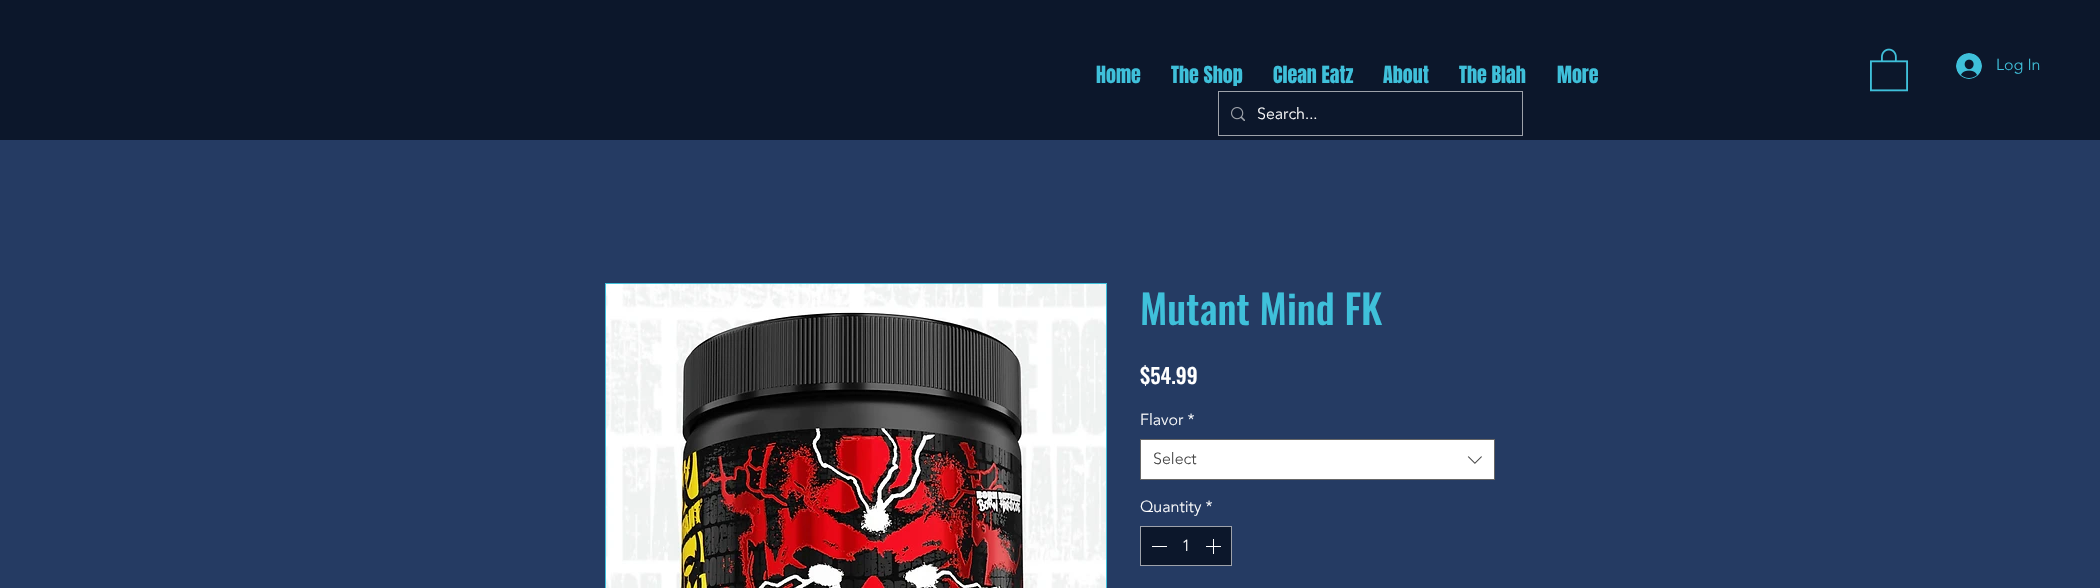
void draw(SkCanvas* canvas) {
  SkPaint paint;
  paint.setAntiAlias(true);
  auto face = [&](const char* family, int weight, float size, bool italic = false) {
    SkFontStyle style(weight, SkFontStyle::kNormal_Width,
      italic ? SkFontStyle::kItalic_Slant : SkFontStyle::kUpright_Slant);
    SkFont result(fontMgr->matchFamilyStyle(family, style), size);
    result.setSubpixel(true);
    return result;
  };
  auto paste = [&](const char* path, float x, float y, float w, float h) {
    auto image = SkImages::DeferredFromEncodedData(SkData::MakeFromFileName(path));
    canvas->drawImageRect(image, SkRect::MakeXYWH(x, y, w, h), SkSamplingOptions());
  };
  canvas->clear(0xff0c172b);
  paste("img/1.png", 1870, 48, 38, 44);
  paste("img/2.png", 1956, 53, 26, 26);
  paint.setStroke(true);
  paint.setStrokeWidth(1);
  paint.setColor(0xff9ea2aa);
  canvas->drawRect(SkRect::MakeXYWH(1218.5f, 91.5f, 304, 44), paint);
  paste("img/3.png", 1231, 107, 14, 14);
  paint.setStroke(false);
  paint.setColor(0xff253b63);
  canvas->drawRect(SkRect::MakeXYWH(0, 140, 2100, 448), paint);
  paint.setStroke(true);
  paint.setColor(0xff3fc0da);
  canvas->drawRect(SkRect::MakeXYWH(605.5f, 283.5f, 501, 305), paint);
  paste("img/4.png", 606, 284, 500, 304);
  paint.setStroke(false);
  paint.setColor(0xffffffff);
  canvas->drawRect(SkRect::MakeXYWH(1140.5f, 439.5f, 354, 40), paint);
  paint.setStroke(true);
  paint.setColor(0xff666666);
  canvas->drawRect(SkRect::MakeXYWH(1140.5f, 439.5f, 354, 40), paint);
  paste("img/5.png", 1467, 456, 15, 8);
  paint.setStroke(false);
  paint.setColor(0xff0c172b);
  canvas->drawRect(SkRect::MakeXYWH(1140.5f, 526.5f, 91, 39), paint);
  paint.setStroke(true);
  paint.setColor(0xff9ea2aa);
  canvas->drawRect(SkRect::MakeXYWH(1140.5f, 526.5f, 91, 39), paint);
  paint.setStroke(false);
  paint.setColor(0xffffffff);
  canvas->drawRect(SkRect::MakeXYWH(1152, 546, 15, 1), paint);
  paste("img/6.png", 1206, 539, 15, 15);
  auto f0 = face("Anton", 400, 20);
  paint.setColor(0xff3fc0da);
  {
    const struct { const char* s; float x, y; } items[] = {
      {"Home", 1096, 83},
      {"The Shop", 1171, 83},
      {"Clean Eatz", 1273, 83},
      {"About", 1383, 83},
      {"The Blah", 1459, 83},
      {"More", 1557, 83},
    };
    for (auto [s, x, y] : items) {
      canvas->drawString(s, x, y, f0, paint);
    }
  }
  auto f1 = face("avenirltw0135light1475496", 300, 16);
  canvas->drawString("Log In", 1996, 70, f1, paint);
  paint.setColor(0xffffffff);
  canvas->drawString("Search...", 1257, 119, f1, paint);
  auto f2 = face("Oswald", 500, 40);
  paint.setColor(0xff3fc0da);
  canvas->drawString("Mutant Mind FK", 1140, 325, f2, paint);
  auto f3 = face("Oswald", 500, 21);
  paint.setColor(0xffffffff);
  canvas->drawString("$54.99", 1140, 384, f3, paint);
  canvas->drawString("Flavor *", 1140, 425, f1, paint);
  paint.setColor(0xff444444);
  canvas->drawString("Select", 1153, 464, f1, paint);
  paint.setColor(0xffffffff);
  canvas->drawString("Quantity *", 1140, 512, f1, paint);
  canvas->drawString("1", 1182, 551, f1, paint);
}
